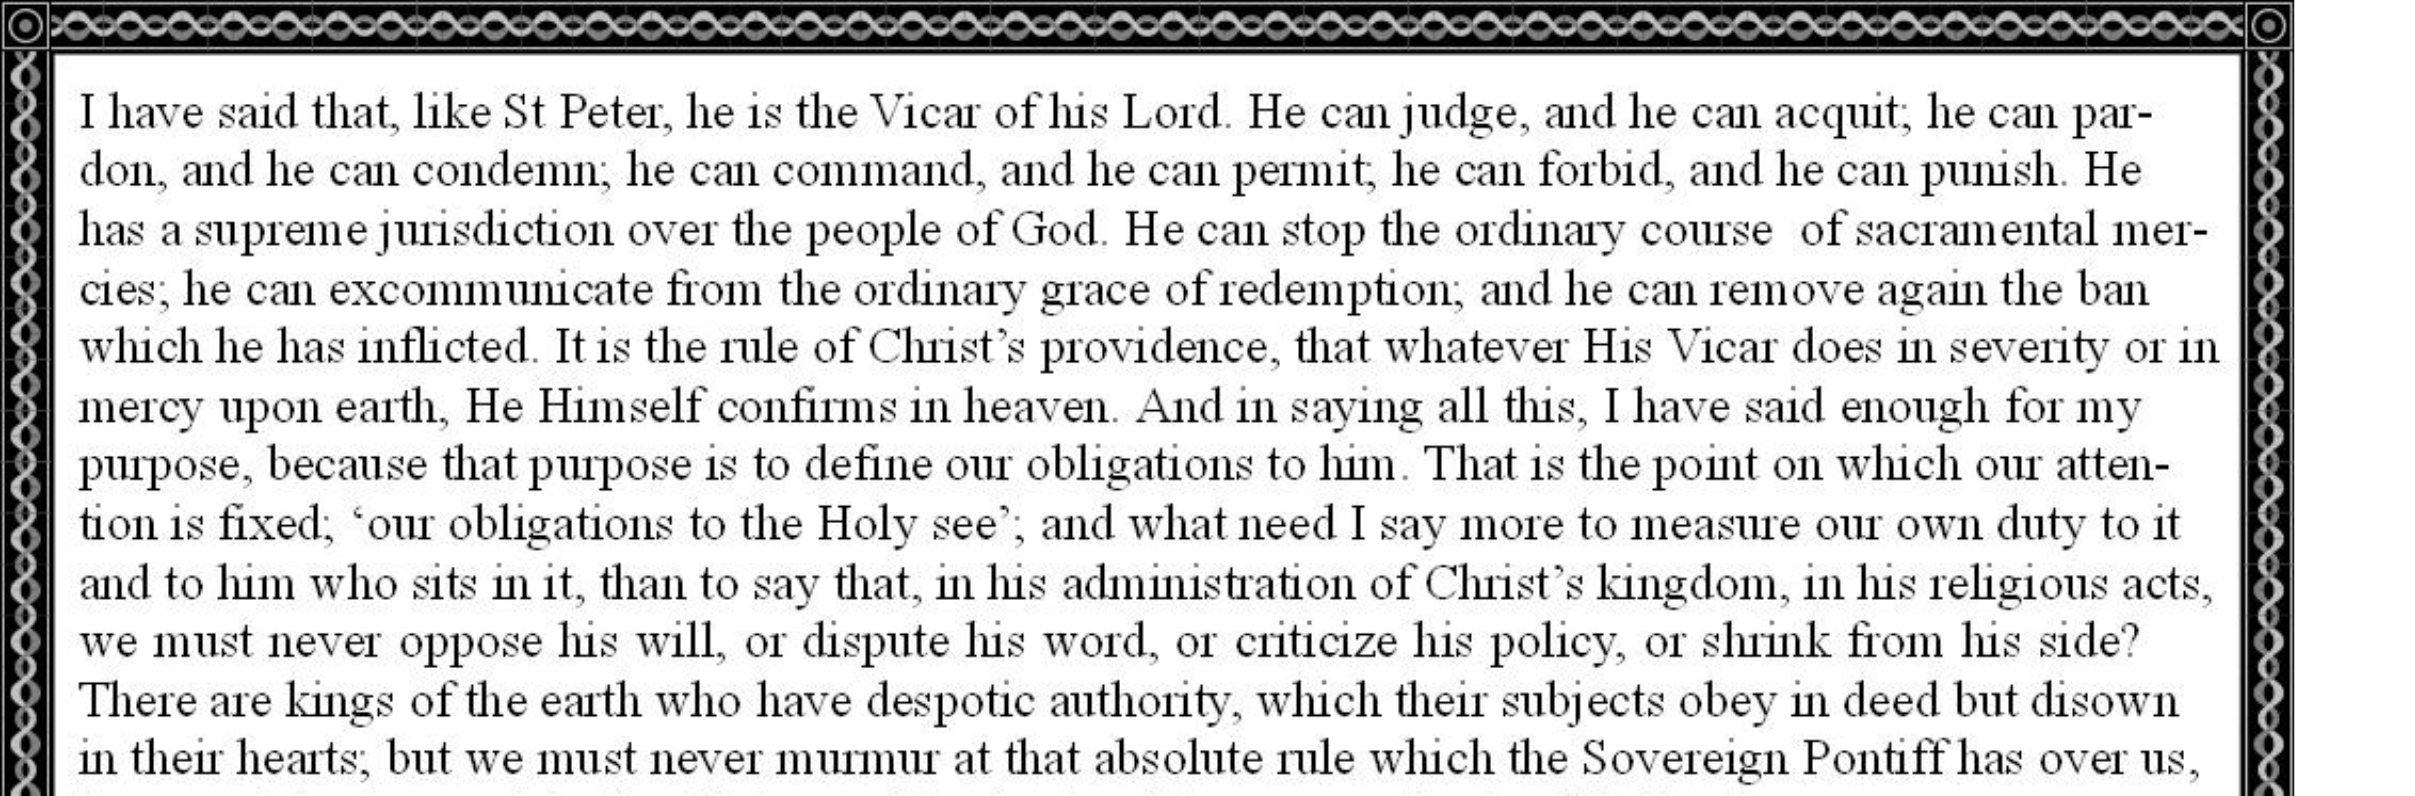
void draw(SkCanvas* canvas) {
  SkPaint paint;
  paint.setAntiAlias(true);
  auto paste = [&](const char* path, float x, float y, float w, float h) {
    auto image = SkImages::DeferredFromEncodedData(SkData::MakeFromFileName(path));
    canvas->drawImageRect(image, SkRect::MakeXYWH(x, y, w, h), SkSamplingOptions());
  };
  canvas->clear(0xffffffff);
  paste("img/1.png", 0, 0, 2295, 796);
}
